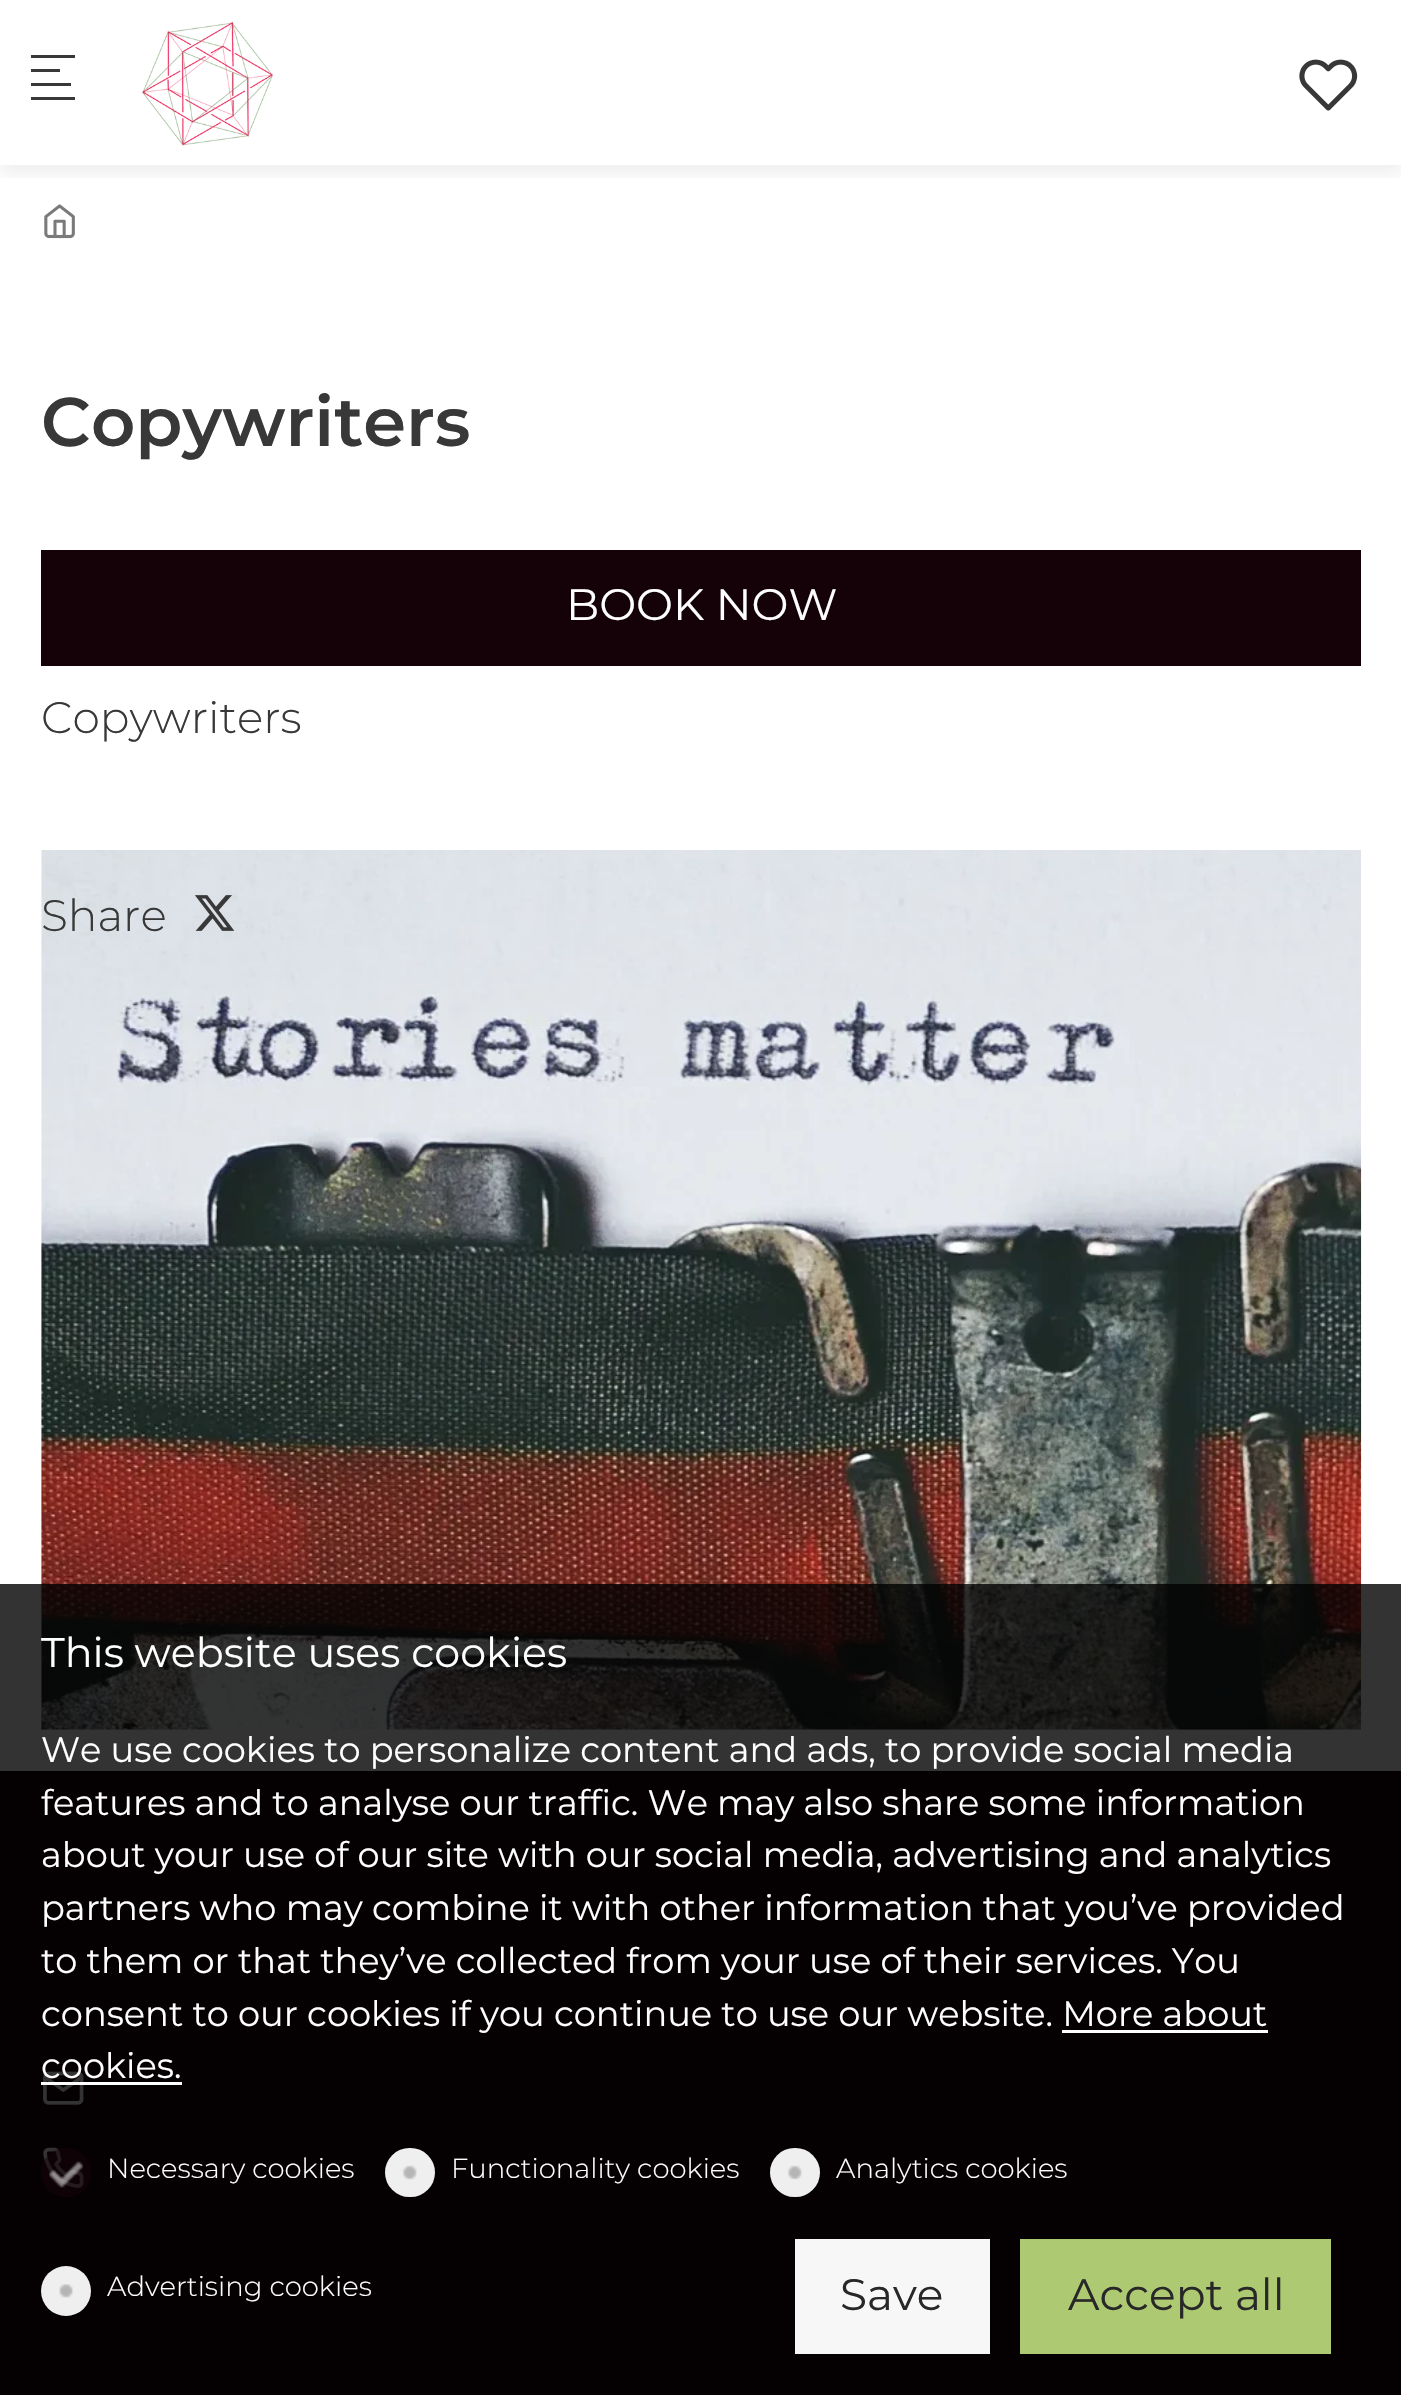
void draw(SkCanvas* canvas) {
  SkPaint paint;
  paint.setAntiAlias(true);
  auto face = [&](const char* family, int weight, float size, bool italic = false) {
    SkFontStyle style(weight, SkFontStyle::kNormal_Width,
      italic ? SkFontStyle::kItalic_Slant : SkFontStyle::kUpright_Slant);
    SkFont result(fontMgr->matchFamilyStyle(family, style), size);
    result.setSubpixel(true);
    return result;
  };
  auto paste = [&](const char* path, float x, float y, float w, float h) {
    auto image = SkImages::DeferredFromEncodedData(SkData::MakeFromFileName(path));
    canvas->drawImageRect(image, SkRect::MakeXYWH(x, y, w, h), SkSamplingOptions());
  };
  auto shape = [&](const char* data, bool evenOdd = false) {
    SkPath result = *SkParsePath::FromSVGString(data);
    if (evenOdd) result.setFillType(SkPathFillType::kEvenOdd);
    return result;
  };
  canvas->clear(0xffffffff);
  canvas->save();
  canvas->clipRect(SkRect::MakeXYWH(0, 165, 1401, 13));
  paint.setColor(0x12000000);
  paint.setMaskFilter(SkMaskFilter::MakeBlur(kNormal_SkBlurStyle, 9.5f));
  canvas->drawRect(SkRect::MakeXYWH(0, 8, 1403, 165), paint);
  paint.setMaskFilter(nullptr);
  canvas->restore();
  paint.setColor(0xff383838);
  canvas->drawPath(shape("M71 83H31V86H71ZM75 55H31V58H75ZM31 69H60V72H31ZM75 97H31V100H75Z"), paint);
  paste("img/1.png", 142, 22, 131, 124);
  paste("img/2.png", 1299, 59, 59, 52);
  paste("img/3.png", 44, 204, 31, 35);
  paint.setColor(0xff150209);
  canvas->drawRect(SkRect::MakeXYWH(41, 550, 1320, 116), paint);
  paste("img/5.png", 41, 850, 1321, 880);
  paste("img/4.png", 195, 895, 40, 36);
  canvas->drawRect(SkRect::MakeXYWH(0, 1771, 1401, 624), paint);
  paste("img/9.png", 43, 2071, 41, 34);
  paste("img/10.png", 43, 2147, 41, 41);
  {
    const struct { float x, y, w, h; SkColor color; } items[] = {
      {0, 1584, 1401, 811, 0xcc000000},
      {1062, 2030, 206, 3, 0xffffffff},
      {41, 2082, 141, 3, 0xffffffff},
    };
    for (auto [x, y, w, h, color] : items) {
      paint.setColor(color);
      canvas->drawRect(SkRect::MakeXYWH(x, y, w, h), paint);
    }
  }
  paint.setColor(0x80150209);
  canvas->drawRoundRect(SkRect::MakeXYWH(41, 2148, 50, 49), 24.5f, 24.5f, paint);
  paste("img/6.png", 49, 2161, 34, 27);
  paint.setColor(0xffefefef);
  canvas->drawRoundRect(SkRect::MakeXYWH(385, 2148, 50, 49), 24.5f, 24.5f, paint);
  paste("img/7.png", 402, 2165, 15, 15);
  canvas->drawRoundRect(SkRect::MakeXYWH(770, 2148, 50, 49), 24.5f, 24.5f, paint);
  paste("img/7.png", 787, 2165, 15, 15);
  canvas->drawCircle(66, 2291, 25, paint);
  paste("img/8.png", 59, 2284, 14, 14);
  paint.setColor(0xfff7f7f7);
  canvas->drawRect(SkRect::MakeXYWH(795, 2239, 195, 115), paint);
  paint.setColor(0xffadc972);
  canvas->drawRect(SkRect::MakeXYWH(1020, 2239, 311, 115), paint);
  auto f0 = face("Montserrat", 100, 68.75f);
  paint.setColor(0xff383838);
  canvas->drawString("Copywriters", 41, 446, f0, paint);
  auto f1 = face("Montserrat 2", 100, 44);
  paint.setColor(0xffffffff);
  canvas->drawString("BOOK NOW", 566, 620, f1, paint);
  auto f2 = face("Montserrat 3", 100, 44);
  paint.setColor(0xff383838);
  canvas->drawString("Copywriters", 41, 733, f2, paint);
  canvas->drawString("Share", 41, 931, f2, paint);
  auto f3 = face("Montserrat 2", 100, 41.25f);
  paint.setColor(0xffffffff);
  canvas->drawString("This website uses cookies", 41, 1667, f3, paint);
  auto f4 = face("Montserrat 2", 100, 35.2f);
  {
    const struct { const char* s; float x, y; } items[] = {
      {"We use cookies to personalize content and ads, to provide social media", 41, 1762},
      {"features and to analyse our traffic. We may also share some information", 41, 1815},
      {"about your use of our site with our social media, advertising and analytics", 41, 1867},
      {"partners who may combine it with other information that you’ve provided", 41, 1920},
      {"to them or that they’ve collected from your use of their services. You", 41, 1973},
      {"consent to our cookies if you continue to use our website. More about", 41, 2026},
      {"cookies.", 41, 2078},
    };
    for (auto [s, x, y] : items) {
      canvas->drawString(s, x, y, f4, paint);
    }
  }
  auto f5 = face("Montserrat 3", 100, 27.5f);
  {
    const struct { const char* s; float x, y; } items[] = {
      {"Necessary cookies", 107, 2178},
      {"Functionality cookies", 451, 2178},
      {"Analytics cookies", 836, 2178},
      {"Advertising cookies", 107, 2296},
    };
    for (auto [s, x, y] : items) {
      canvas->drawString(s, x, y, f5, paint);
    }
  }
  paint.setColor(0xff282828);
  canvas->drawString("Save", 840, 2310, f1, paint);
  canvas->drawString("Accept all", 1068, 2310, f1, paint);
}
